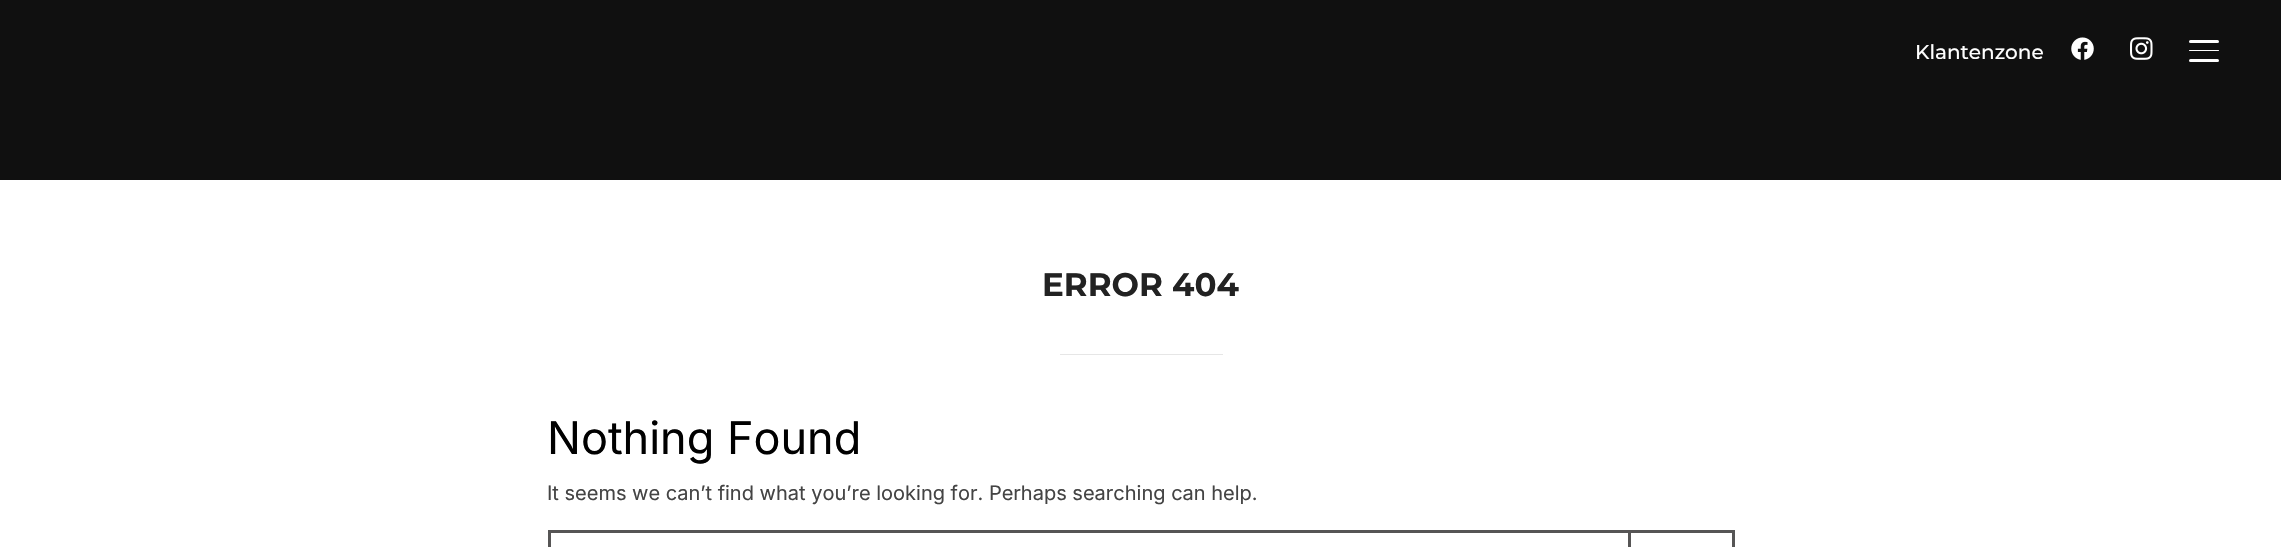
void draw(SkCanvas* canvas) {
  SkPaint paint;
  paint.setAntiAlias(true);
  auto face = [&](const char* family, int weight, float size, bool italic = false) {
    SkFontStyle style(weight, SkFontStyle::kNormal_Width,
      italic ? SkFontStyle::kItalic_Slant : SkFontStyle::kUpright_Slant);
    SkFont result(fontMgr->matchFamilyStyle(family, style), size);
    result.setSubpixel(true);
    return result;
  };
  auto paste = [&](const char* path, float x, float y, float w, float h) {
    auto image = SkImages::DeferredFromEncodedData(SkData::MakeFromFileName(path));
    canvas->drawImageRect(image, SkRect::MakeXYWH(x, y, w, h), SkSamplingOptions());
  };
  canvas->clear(0xffffffff);
  paint.setColor(0xff101010);
  canvas->drawRect(SkRect::MakeXYWH(0, 0, 2281, 180), paint);
  paste("img/1.png", 2071, 37, 23, 23);
  paste("img/2.png", 2130, 37, 23, 23);
  paint.setColor(0xffffffff);
  canvas->drawRoundRect(SkRect::MakeXYWH(2189, 40, 30, 3), 1.5f, 1.5f, paint);
  canvas->drawRoundRect(SkRect::MakeXYWH(2189, 50, 30, 1), 0.5f, 0.5f, paint);
  canvas->drawRoundRect(SkRect::MakeXYWH(2189, 59, 30, 3), 1.5f, 1.5f, paint);
  paint.setColor(0xffe6e6e6);
  canvas->drawRect(SkRect::MakeXYWH(1060, 354, 163, 1), paint);
  paint.setStroke(true);
  paint.setStrokeWidth(3);
  paint.setColor(0xff565555);
  canvas->drawRect(SkRect::MakeXYWH(549.5f, 531.5f, 1184, 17), paint);
  canvas->drawRect(SkRect::MakeXYWH(1629.5f, 531.5f, 104, 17), paint);
  auto f0 = face("Montserrat", 500, 20);
  paint.setStroke(false);
  paint.setColor(0xffffffff);
  canvas->drawString("Klantenzone", 1915, 59, f0, paint);
  auto f1 = face("Montserrat", 700, 32.5f);
  paint.setColor(0xff222222);
  canvas->drawString("ERROR 404", 1042, 296, f1, paint);
  auto f2 = face("Inter", 400, 45);
  paint.setColor(0xff000000);
  canvas->drawString("Nothing Found", 547, 454, f2, paint);
  auto f3 = face("Inter", 400, 20);
  paint.setColor(0xff444444);
  canvas->drawString("It seems we can’t find what you’re looking for. Perhaps searching can help.", 547, 500, f3, paint);
}
